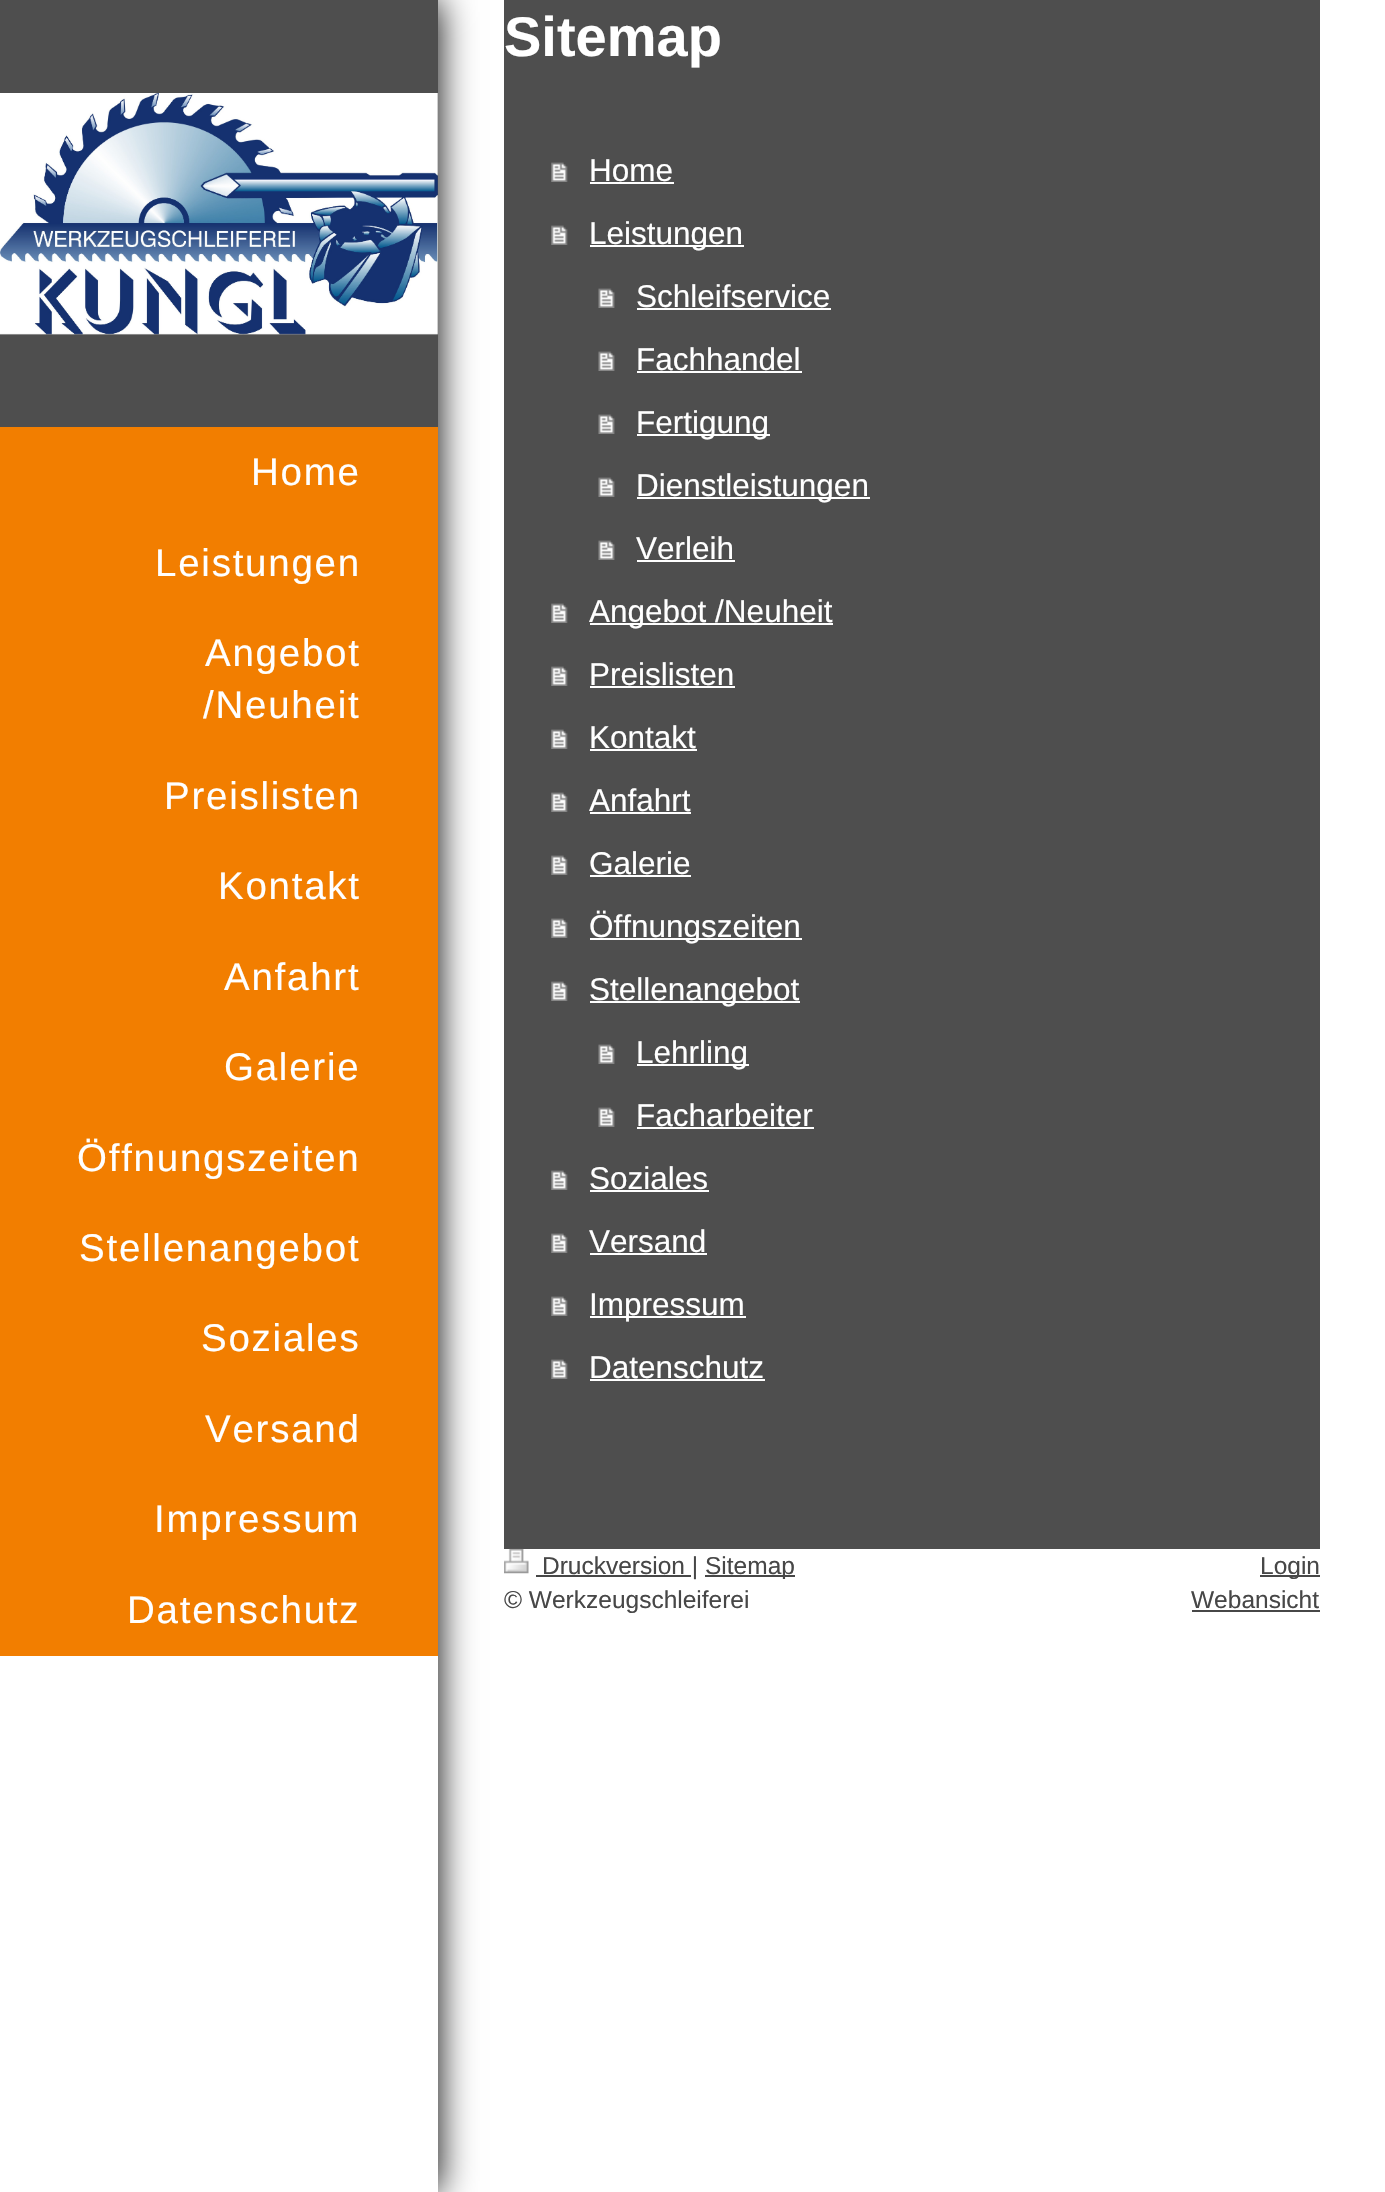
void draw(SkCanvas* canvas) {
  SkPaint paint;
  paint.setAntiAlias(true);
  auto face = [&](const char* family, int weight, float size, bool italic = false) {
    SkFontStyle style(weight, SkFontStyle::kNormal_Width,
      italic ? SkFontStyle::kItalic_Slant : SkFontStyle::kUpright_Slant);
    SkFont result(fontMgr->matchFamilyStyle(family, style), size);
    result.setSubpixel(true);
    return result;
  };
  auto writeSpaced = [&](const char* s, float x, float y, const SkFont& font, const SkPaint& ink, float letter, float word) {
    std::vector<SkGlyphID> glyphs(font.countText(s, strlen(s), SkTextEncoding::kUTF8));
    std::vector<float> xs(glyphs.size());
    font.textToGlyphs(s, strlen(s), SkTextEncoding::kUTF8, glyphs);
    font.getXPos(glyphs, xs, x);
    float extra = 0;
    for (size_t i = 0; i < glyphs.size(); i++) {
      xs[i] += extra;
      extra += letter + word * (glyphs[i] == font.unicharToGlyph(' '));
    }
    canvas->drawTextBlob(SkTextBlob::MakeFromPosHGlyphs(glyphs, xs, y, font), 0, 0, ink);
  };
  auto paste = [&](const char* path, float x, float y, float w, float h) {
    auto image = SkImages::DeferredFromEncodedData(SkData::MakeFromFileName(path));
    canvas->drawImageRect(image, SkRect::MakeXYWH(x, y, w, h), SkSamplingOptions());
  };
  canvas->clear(0xffffffff);
  paint.setColor(0xff000000);
  paint.setMaskFilter(SkMaskFilter::MakeBlur(kNormal_SkBlurStyle, 17.5f));
  canvas->drawRect(SkRect::MakeXYWH(0, 0, 438, 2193), paint);
  paint.setMaskFilter(nullptr);
  paint.setColor(0xffffffff);
  canvas->drawRect(SkRect::MakeXYWH(0, 1656, 438, 536), paint);
  paint.setColor(0xff4e4e4e);
  canvas->drawRect(SkRect::MakeXYWH(504, 0, 816, 1549), paint);
  paste("img/1.png", 551, 162, 17, 20);
  paint.setColor(0xffffffff);
  canvas->drawRect(SkRect::MakeXYWH(590, 182, 84, 2), paint);
  paste("img/2.png", 551, 225, 17, 20);
  canvas->drawRect(SkRect::MakeXYWH(590, 245, 154, 2), paint);
  paste("img/3.png", 598, 288, 17, 20);
  canvas->drawRect(SkRect::MakeXYWH(637, 308, 194, 2), paint);
  paste("img/3.png", 598, 351, 17, 20);
  canvas->drawRect(SkRect::MakeXYWH(637, 371, 165, 2), paint);
  paste("img/3.png", 598, 414, 17, 20);
  canvas->drawRect(SkRect::MakeXYWH(637, 434, 133, 2), paint);
  paste("img/3.png", 598, 477, 17, 20);
  canvas->drawRect(SkRect::MakeXYWH(637, 497, 233, 2), paint);
  paste("img/3.png", 598, 540, 17, 20);
  canvas->drawRect(SkRect::MakeXYWH(637, 560, 98, 2), paint);
  paste("img/1.png", 551, 603, 17, 20);
  canvas->drawRect(SkRect::MakeXYWH(590, 623, 243, 2), paint);
  paste("img/1.png", 551, 666, 17, 20);
  canvas->drawRect(SkRect::MakeXYWH(590, 686, 145, 2), paint);
  paste("img/1.png", 551, 729, 17, 20);
  canvas->drawRect(SkRect::MakeXYWH(590, 749, 107, 2), paint);
  paste("img/1.png", 551, 792, 17, 20);
  canvas->drawRect(SkRect::MakeXYWH(590, 812, 101, 2), paint);
  paste("img/1.png", 551, 855, 17, 20);
  canvas->drawRect(SkRect::MakeXYWH(590, 875, 101, 2), paint);
  paste("img/1.png", 551, 918, 17, 20);
  canvas->drawRect(SkRect::MakeXYWH(590, 938, 212, 2), paint);
  paste("img/1.png", 551, 981, 17, 20);
  canvas->drawRect(SkRect::MakeXYWH(590, 1001, 210, 2), paint);
  paste("img/3.png", 598, 1044, 17, 20);
  canvas->drawRect(SkRect::MakeXYWH(637, 1064, 112, 2), paint);
  paste("img/3.png", 598, 1107, 17, 20);
  canvas->drawRect(SkRect::MakeXYWH(637, 1127, 177, 2), paint);
  paste("img/1.png", 551, 1170, 17, 20);
  canvas->drawRect(SkRect::MakeXYWH(590, 1190, 119, 2), paint);
  paste("img/1.png", 551, 1233, 17, 20);
  canvas->drawRect(SkRect::MakeXYWH(590, 1253, 117, 2), paint);
  paste("img/1.png", 551, 1296, 17, 20);
  canvas->drawRect(SkRect::MakeXYWH(590, 1316, 156, 2), paint);
  paste("img/1.png", 551, 1359, 17, 20);
  canvas->drawRect(SkRect::MakeXYWH(590, 1379, 175, 2), paint);
  paste("img/4.png", 504, 1548, 25, 26);
  {
    const struct { float x, y, w, h; SkColor color; } items[] = {
      {536, 1575, 155, 2, 0xff474747},
      {705, 1575, 90, 2, 0xff474747},
      {1260, 1575, 60, 2, 0xff474747},
      {1192, 1610, 128, 2, 0xff474747},
      {0, 0, 438, 427, 0xff4e4e4e},
    };
    for (auto [x, y, w, h, color] : items) {
      paint.setColor(color);
      canvas->drawRect(SkRect::MakeXYWH(x, y, w, h), paint);
    }
  }
  paste("img/5.png", 0, 93, 438, 242);
  paint.setColor(0xfff27e00);
  canvas->drawRect(SkRect::MakeXYWH(0, 427, 438, 1229), paint);
  auto f0 = face("Liberation Sans", 700, 56);
  paint.setColor(0xffffffff);
  canvas->drawString("Sitemap", 504, 56, f0, paint);
  auto f1 = face("Liberation Sans", 400, 31.5f);
  {
    const struct { const char* s; float x, y; } items[] = {
      {"Home", 589, 181},
      {"Leistungen", 589, 244},
      {"Schleifservice", 636, 307},
      {"Fachhandel", 636, 370},
      {"Fertigung", 636, 433},
      {"Dienstleistungen", 636, 496},
      {"Verleih", 636, 559},
      {"Angebot /Neuheit", 589, 622},
      {"Preislisten", 589, 685},
      {"Kontakt", 589, 748},
      {"Anfahrt", 589, 811},
      {"Galerie", 589, 874},
      {"Öffnungszeiten", 589, 937},
      {"Stellenangebot", 589, 1000},
      {"Lehrling", 636, 1063},
      {"Facharbeiter", 636, 1126},
      {"Soziales", 589, 1189},
      {"Versand", 589, 1252},
      {"Impressum", 589, 1315},
      {"Datenschutz", 589, 1378},
    };
    for (auto [s, x, y] : items) {
      canvas->drawString(s, x, y, f1, paint);
    }
  }
  auto f2 = face("Liberation Sans", 400, 24.5f);
  paint.setColor(0xff474747);
  {
    const struct { const char* s; float x, y; } items[] = {
      {"Druckversion |", 542, 1574},
      {"Sitemap", 705, 1574},
      {"© Werkzeugschleiferei", 504, 1608},
      {"Login", 1260, 1574},
      {"Webansicht", 1191, 1608},
    };
    for (auto [s, x, y] : items) {
      canvas->drawString(s, x, y, f2, paint);
    }
  }
  auto f3 = face("Liberation Sans", 400, 38.5f);
  paint.setColor(0xffffffff);
  {
    const struct { const char* s; float x, y; } items[] = {
      {"Home", 251, 485},
      {"Leistungen", 155, 576},
      {"Angebot", 205, 666},
      {"/Neuheit", 203, 718},
      {"Preislisten", 164, 809},
      {"Kontakt", 218, 899},
      {"Anfahrt", 224, 990},
      {"Galerie", 224, 1080},
      {"Öffnungszeiten", 77, 1171},
      {"Stellenangebot", 79, 1261},
      {"Soziales", 201, 1351},
      {"Versand", 205, 1442},
      {"Impressum", 154, 1532},
      {"Datenschutz", 127, 1623},
    };
    for (auto [s, x, y] : items) {
      writeSpaced(s, x, y, f3, paint, 1.75f, 0);
    }
  }
}
